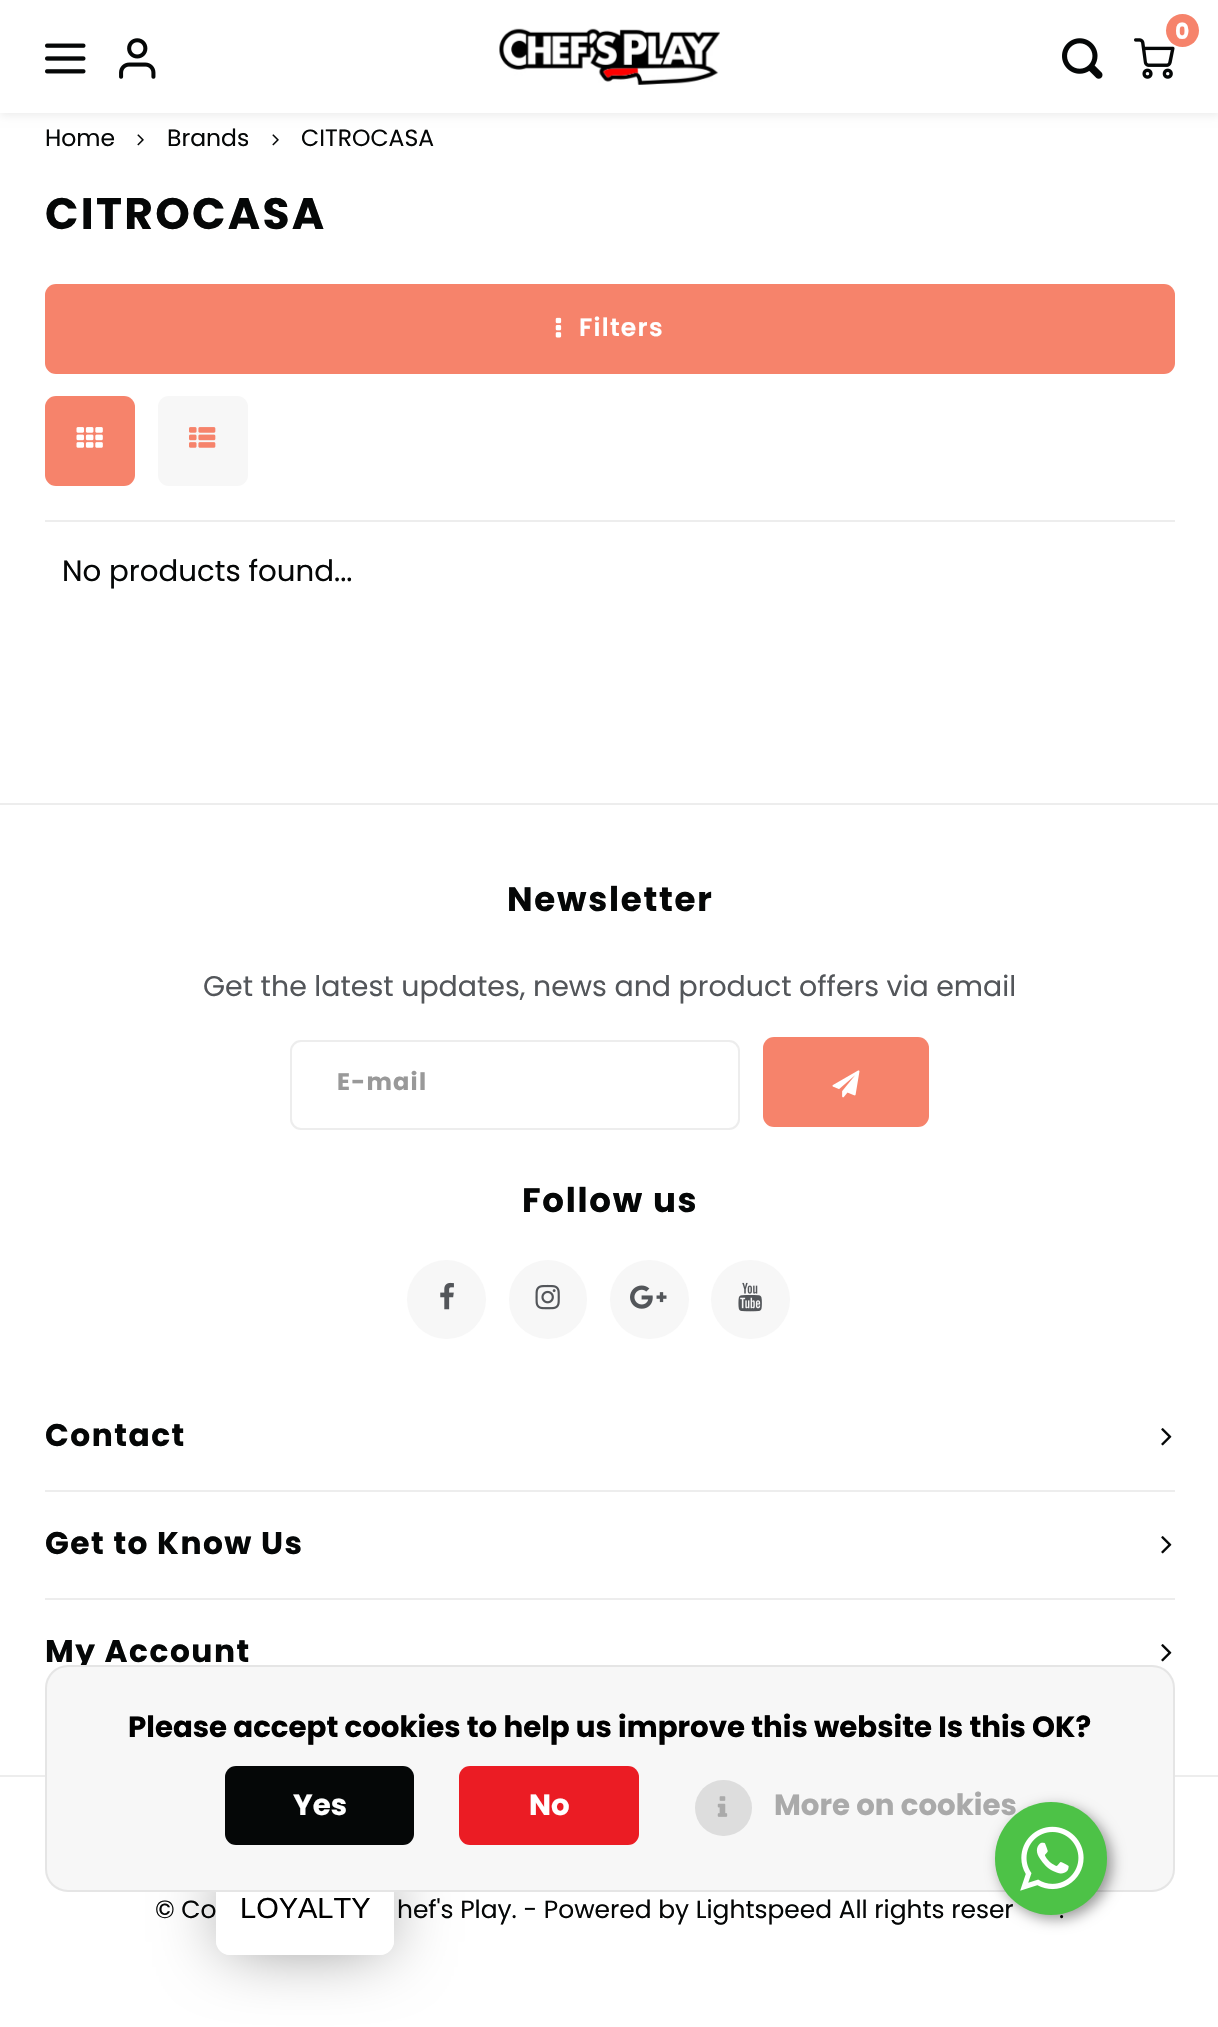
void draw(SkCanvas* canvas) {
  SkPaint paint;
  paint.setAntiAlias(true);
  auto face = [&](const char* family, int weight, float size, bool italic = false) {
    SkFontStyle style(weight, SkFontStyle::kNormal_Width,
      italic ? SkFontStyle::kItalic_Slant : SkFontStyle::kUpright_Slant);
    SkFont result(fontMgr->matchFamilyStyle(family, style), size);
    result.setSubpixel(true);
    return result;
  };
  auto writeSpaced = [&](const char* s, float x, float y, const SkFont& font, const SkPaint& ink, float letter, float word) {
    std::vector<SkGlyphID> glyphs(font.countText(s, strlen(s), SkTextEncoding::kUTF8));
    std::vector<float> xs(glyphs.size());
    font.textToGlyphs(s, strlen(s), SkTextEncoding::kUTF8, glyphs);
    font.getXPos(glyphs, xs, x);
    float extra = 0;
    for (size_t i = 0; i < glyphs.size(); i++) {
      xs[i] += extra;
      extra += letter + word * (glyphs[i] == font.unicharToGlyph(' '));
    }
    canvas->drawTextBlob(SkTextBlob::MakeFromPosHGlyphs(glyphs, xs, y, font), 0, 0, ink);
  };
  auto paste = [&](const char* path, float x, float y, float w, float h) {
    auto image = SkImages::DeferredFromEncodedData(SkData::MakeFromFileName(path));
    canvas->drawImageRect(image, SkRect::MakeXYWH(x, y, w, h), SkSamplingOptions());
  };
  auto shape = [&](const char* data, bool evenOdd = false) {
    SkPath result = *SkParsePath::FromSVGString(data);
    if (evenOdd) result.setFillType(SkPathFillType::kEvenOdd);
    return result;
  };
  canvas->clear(0xffffffff);
  paint.setColor(0x14000000);
  paint.setMaskFilter(SkMaskFilter::MakeBlur(kNormal_SkBlurStyle, 4.5f));
  canvas->drawRect(SkRect::MakeXYWH(0, 2, 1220, 113), paint);
  paint.setMaskFilter(nullptr);
  paint.setColor(0xffffffff);
  canvas->drawRect(SkRect::MakeXYWH(0, 0, 1218, 113), paint);
  paste("img/1.png", 45, 43, 41, 31);
  paste("img/2.png", 119, 38, 37, 41);
  paste("img/3.png", 499, 28, 221, 57);
  paste("img/4.png", 1134, 38, 41, 41);
  paint.setColor(0xfff6836b);
  canvas->drawCircle(1182.5f, 30.5f, 16.5f, paint);
  paste("img/5.png", 1062, 38, 41, 41);
  paste("img/6.png", 137, 134, 7, 12);
  paste("img/6.png", 272, 134, 7, 12);
  paint.setColor(0xffededed);
  canvas->drawRect(SkRect::MakeXYWH(45, 520, 1130, 2), paint);
  paint.setColor(0xfff6836b);
  canvas->drawRoundRect(SkRect::MakeXYWH(45, 284, 1130, 90), 11, 11, paint);
  paste("img/7.png", 555, 317, 7, 21);
  canvas->drawRoundRect(SkRect::MakeXYWH(45, 396, 90, 90), 11, 11, paint);
  paste("img/8.png", 76, 427, 27, 21);
  paint.setColor(0xfff7f7f7);
  canvas->drawRoundRect(SkRect::MakeXYWH(158, 396, 90, 90), 11, 11, paint);
  paste("img/9.png", 189, 427, 27, 21);
  paint.setColor(0xffededed);
  canvas->drawRect(SkRect::MakeXYWH(0, 803, 1218, 2), paint);
  paint.setStroke(true);
  paint.setStrokeWidth(2);
  canvas->drawRoundRect(SkRect::MakeXYWH(291, 1041, 448, 88), 10, 10, paint);
  paint.setStroke(false);
  paint.setColor(0xfff6836b);
  canvas->drawRoundRect(SkRect::MakeXYWH(763, 1037, 166, 90), 11, 11, paint);
  paste("img/10.png", 832, 1070, 28, 28);
  paint.setColor(0xfff7f7f7);
  canvas->drawCircle(446.5f, 1299.5f, 39.5f, paint);
  paste("img/11.png", 440, 1282, 14, 28);
  canvas->drawRoundRect(SkRect::MakeXYWH(509, 1260, 78, 79), 39, 39, paint);
  paste("img/12.png", 535, 1284, 25, 26);
  canvas->drawCircle(649.5f, 1299.5f, 39.5f, paint);
  paste("img/13.png", 630, 1285, 37, 24);
  canvas->drawCircle(750.5f, 1299.5f, 39.5f, paint);
  paste("img/14.png", 738, 1282, 24, 30);
  paint.setColor(0xffededed);
  canvas->drawRect(SkRect::MakeXYWH(45, 1490, 1130, 2), paint);
  paste("img/15.png", 1161, 1428, 11, 18);
  canvas->drawRect(SkRect::MakeXYWH(45, 1598, 1130, 2), paint);
  paste("img/15.png", 1161, 1536, 11, 18);
  paste("img/15.png", 1161, 1644, 11, 18);
  canvas->drawRect(SkRect::MakeXYWH(0, 1775, 1218, 2), paint);
  canvas->save();
  canvas->clipPath(shape("M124 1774H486V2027H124ZM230 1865H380C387.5 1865 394 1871.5 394 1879V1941C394 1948.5 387.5 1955 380 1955H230C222.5 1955 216 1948.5 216 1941V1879C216 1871.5 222.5 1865 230 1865Z", true), true);
  paint.setColor(0x80000000);
  paint.setMaskFilter(SkMaskFilter::MakeBlur(kNormal_SkBlurStyle, 34));
  canvas->drawRoundRect(SkRect::MakeXYWH(227, 1877, 156, 67), 2, 2, paint);
  paint.setMaskFilter(nullptr);
  canvas->restore();
  paint.setColor(0xe6ffffff);
  canvas->drawRoundRect(SkRect::MakeXYWH(216, 1865, 178, 90), 14, 14, paint);
  auto f0 = face("Poppins", 700, 22);
  paint.setColor(0xffffffff);
  canvas->drawString("0", 1175, 39, f0, paint);
  auto f1 = face("Poppins", 400, 23.5f);
  paint.setColor(0xff050707);
  {
    const struct { const char* s; float x, y; } items[] = {
      {"Home", 45, 146},
      {"Brands", 167, 146},
      {"CITROCASA", 301, 146},
    };
    for (auto [s, x, y] : items) {
      canvas->drawString(s, x, y, f1, paint);
    }
  }
  auto f2 = face("Poppins", 700, 44);
  writeSpaced("CITROCASA", 45, 229, f2, paint, 2.25f, 0);
  auto f3 = face("Poppins", 600, 25);
  paint.setColor(0xffffffff);
  writeSpaced("Filters", 579, 336, f3, paint, 1.25f, 0);
  auto f4 = face("Poppins", 400, 29.25f);
  paint.setColor(0xff050707);
  canvas->drawString("No products found...", 62, 581, f4, paint);
  auto f5 = face("Poppins", 700, 34);
  writeSpaced("Newsletter", 507, 911, f5, paint, 1.75f, 0);
  auto f6 = face("Poppins", 400, 28.4f);
  paint.setColor(0xff53565a);
  canvas->drawString("Get the latest updates, news and product offers via email", 203, 996, f6, paint);
  auto f7 = face("Poppins", 700, 24);
  paint.setColor(0xff999999);
  writeSpaced("E-mail", 337, 1090, f7, paint, 1.25f, 0);
  paint.setColor(0xff050707);
  writeSpaced("Follow us", 522, 1212, f5, paint, 1.75f, 0);
  auto f8 = face("Poppins", 700, 31.25f);
  {
    const struct { const char* s; float x, y; } items[] = {
      {"Contact", 45, 1446},
      {"Get to Know Us", 45, 1554},
      {"My Account", 45, 1662},
    };
    for (auto [s, x, y] : items) {
      writeSpaced(s, x, y, f8, paint, 1.5f, 0);
    }
  }
  auto f9 = face("Poppins", 400, 24.9f);
  {
    const struct { const char* s; float x, y; } items[] = {
      {"© Co", 155, 1918},
      {"hef's Play. - Powered by Lightspeed All rights reser", 397, 1918},
      {".", 1059, 1918},
    };
    for (auto [s, x, y] : items) {
      canvas->drawString(s, x, y, f9, paint);
    }
  }
  paint.setColor(0xfff7f7f7);
  canvas->drawRoundRect(SkRect::MakeXYWH(45, 1665, 1130, 227), 23, 23, paint);
  paint.setStroke(true);
  paint.setColor(0x12000000);
  canvas->drawRoundRect(SkRect::MakeXYWH(46, 1666, 1128, 225), 22, 22, paint);
  auto f10 = face("Poppins", 700, 29.25f);
  paint.setStroke(false);
  paint.setColor(0xff000000);
  canvas->drawString("Please accept cookies to help us improve this website Is this OK?", 128, 1737, f10, paint);
  paint.setColor(0xff050707);
  canvas->drawRoundRect(SkRect::MakeXYWH(225, 1766, 189, 79), 11, 11, paint);
  paint.setColor(0xffffffff);
  canvas->drawString("Yes", 293, 1815, f10, paint);
  paint.setColor(0xffeb1c24);
  canvas->drawRoundRect(SkRect::MakeXYWH(459, 1766, 180, 79), 11, 11, paint);
  paint.setColor(0xffffffff);
  canvas->drawString("No", 529, 1815, f10, paint);
  paint.setColor(0xffdddddd);
  canvas->drawRoundRect(SkRect::MakeXYWH(695, 1780, 57, 56), 28, 28, paint);
  paste("img/16.png", 717, 1796, 11, 21);
  paint.setColor(0xffaaaaaa);
  canvas->drawString("More on cookies", 774, 1815, f10, paint);
  auto f11 = face("Liberation Sans", 400, 29);
  paint.setColor(0xff000000);
  canvas->drawString("LOYALTY", 240, 1918, f11, paint);
  paint.setColor(0x66000000);
  paint.setMaskFilter(SkMaskFilter::MakeBlur(kNormal_SkBlurStyle, 7));
  canvas->drawRoundRect(SkRect::MakeXYWH(999, 1807, 113, 112), 56, 56, paint);
  paint.setMaskFilter(nullptr);
  paint.setColor(0xff4dc247);
  canvas->drawRoundRect(SkRect::MakeXYWH(995, 1802, 112, 113), 56, 56, paint);
  paste("img/17.png", 1020, 1826, 64, 65);
}
